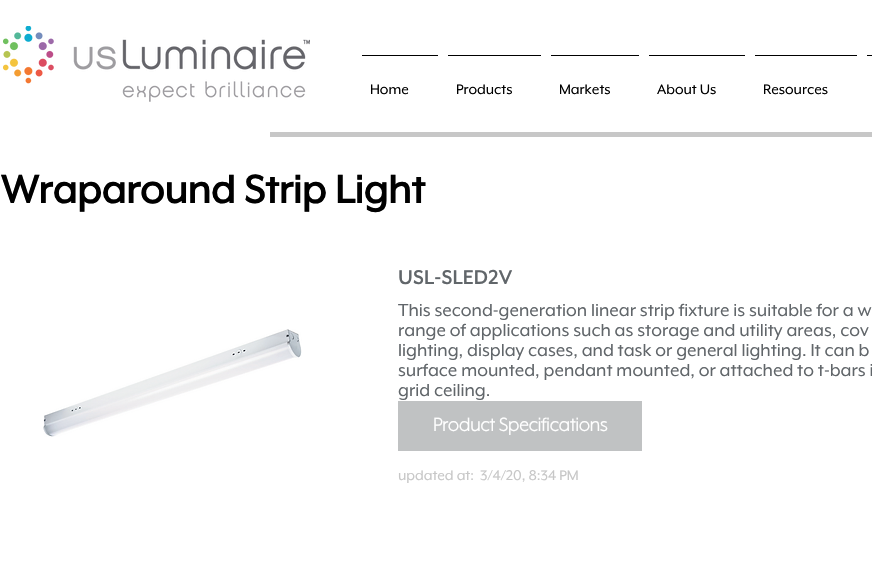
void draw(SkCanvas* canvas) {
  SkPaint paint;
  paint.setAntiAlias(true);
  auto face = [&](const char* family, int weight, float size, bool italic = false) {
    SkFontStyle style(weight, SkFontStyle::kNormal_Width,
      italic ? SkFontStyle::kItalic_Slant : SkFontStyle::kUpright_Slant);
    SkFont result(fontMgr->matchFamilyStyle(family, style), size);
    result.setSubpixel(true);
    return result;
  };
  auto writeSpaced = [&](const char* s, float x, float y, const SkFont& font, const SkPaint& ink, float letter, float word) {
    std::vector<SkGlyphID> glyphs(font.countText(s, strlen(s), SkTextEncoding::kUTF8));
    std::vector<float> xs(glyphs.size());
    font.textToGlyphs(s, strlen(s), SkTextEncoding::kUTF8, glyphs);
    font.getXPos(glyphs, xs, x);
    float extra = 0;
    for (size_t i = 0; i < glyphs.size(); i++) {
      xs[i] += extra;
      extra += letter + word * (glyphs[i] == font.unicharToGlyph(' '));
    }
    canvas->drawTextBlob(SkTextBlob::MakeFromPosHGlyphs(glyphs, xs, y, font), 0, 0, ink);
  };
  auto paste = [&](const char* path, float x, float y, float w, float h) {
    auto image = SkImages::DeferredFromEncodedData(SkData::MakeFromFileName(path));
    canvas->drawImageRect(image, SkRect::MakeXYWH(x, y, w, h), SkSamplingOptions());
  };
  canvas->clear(0xffffffff);
  paste("img/1.png", 3, 26, 307, 76);
  {
    const struct { float x, y, w, h; SkColor color; } items[] = {
      {867, 55, 5, 1, 0xff000000},
      {362, 55, 76, 1, 0xff000000},
      {448, 55, 93, 1, 0xff000000},
      {551, 55, 88, 1, 0xff000000},
      {649, 55, 96, 1, 0xff000000},
      {755, 55, 102, 1, 0xff000000},
      {270, 132, 602, 5, 0xffc7c7c7},
    };
    for (auto [x, y, w, h, color] : items) {
      paint.setColor(color);
      canvas->drawRect(SkRect::MakeXYWH(x, y, w, h), paint);
    }
  }
  paste("img/2.png", 43, 329, 259, 108);
  auto f0 = face("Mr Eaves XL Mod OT", 400, 16);
  paint.setColor(0xff000000);
  {
    const struct { const char* s; float x, y; } items[] = {
      {"Home", 370, 94},
      {"Products", 456, 94},
      {"Markets", 559, 94},
      {"About Us", 657, 94},
      {"Resources", 763, 94},
    };
    for (auto [s, x, y] : items) {
      canvas->drawString(s, x, y, f0, paint);
    }
  }
  auto f1 = face("Mr Eaves XL Mod OT", 700, 45);
  canvas->drawString("Wraparound Strip Light", 1, 203, f1, paint);
  auto f2 = face("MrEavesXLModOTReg", 700, 22);
  paint.setColor(0xff61666a);
  writeSpaced("USL-SLED2V", 398, 284, f2, paint, 0.75f, 0);
  auto f3 = face("Mr Eaves XL Mod OT", 400, 20);
  {
    const struct { const char* s; float x, y; } items[] = {
      {"This second-generation linear strip fixture is suitable for a w", 398, 316},
      {"range of applications such as storage and utility areas, cov", 398, 336},
      {"lighting, display cases, and task or general lighting. It can b", 398, 356},
      {"surface mounted, pendant mounted, or attached to t-bars i", 398, 376},
      {"grid ceiling.", 398, 396},
    };
    for (auto [s, x, y] : items) {
      canvas->drawString(s, x, y, f3, paint);
    }
  }
  paint.setColor(0x6661666a);
  canvas->drawRect(SkRect::MakeXYWH(397.5f, 400.5f, 245, 51), paint);
  paint.setStroke(true);
  paint.setStrokeWidth(1);
  paint.setColor(0xffffffff);
  canvas->drawRect(SkRect::MakeXYWH(397.5f, 400.5f, 245, 51), paint);
  auto f4 = face("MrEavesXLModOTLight", 700, 21);
  paint.setStroke(false);
  canvas->drawString("Product Specifications", 433, 431, f4, paint);
  paint.setColor(0xffc7c7c7);
  canvas->drawString("updated at:", 398, 480, f0, paint);
  canvas->drawString("3/4/20, 8:34 PM", 480, 480, f0, paint);
}
